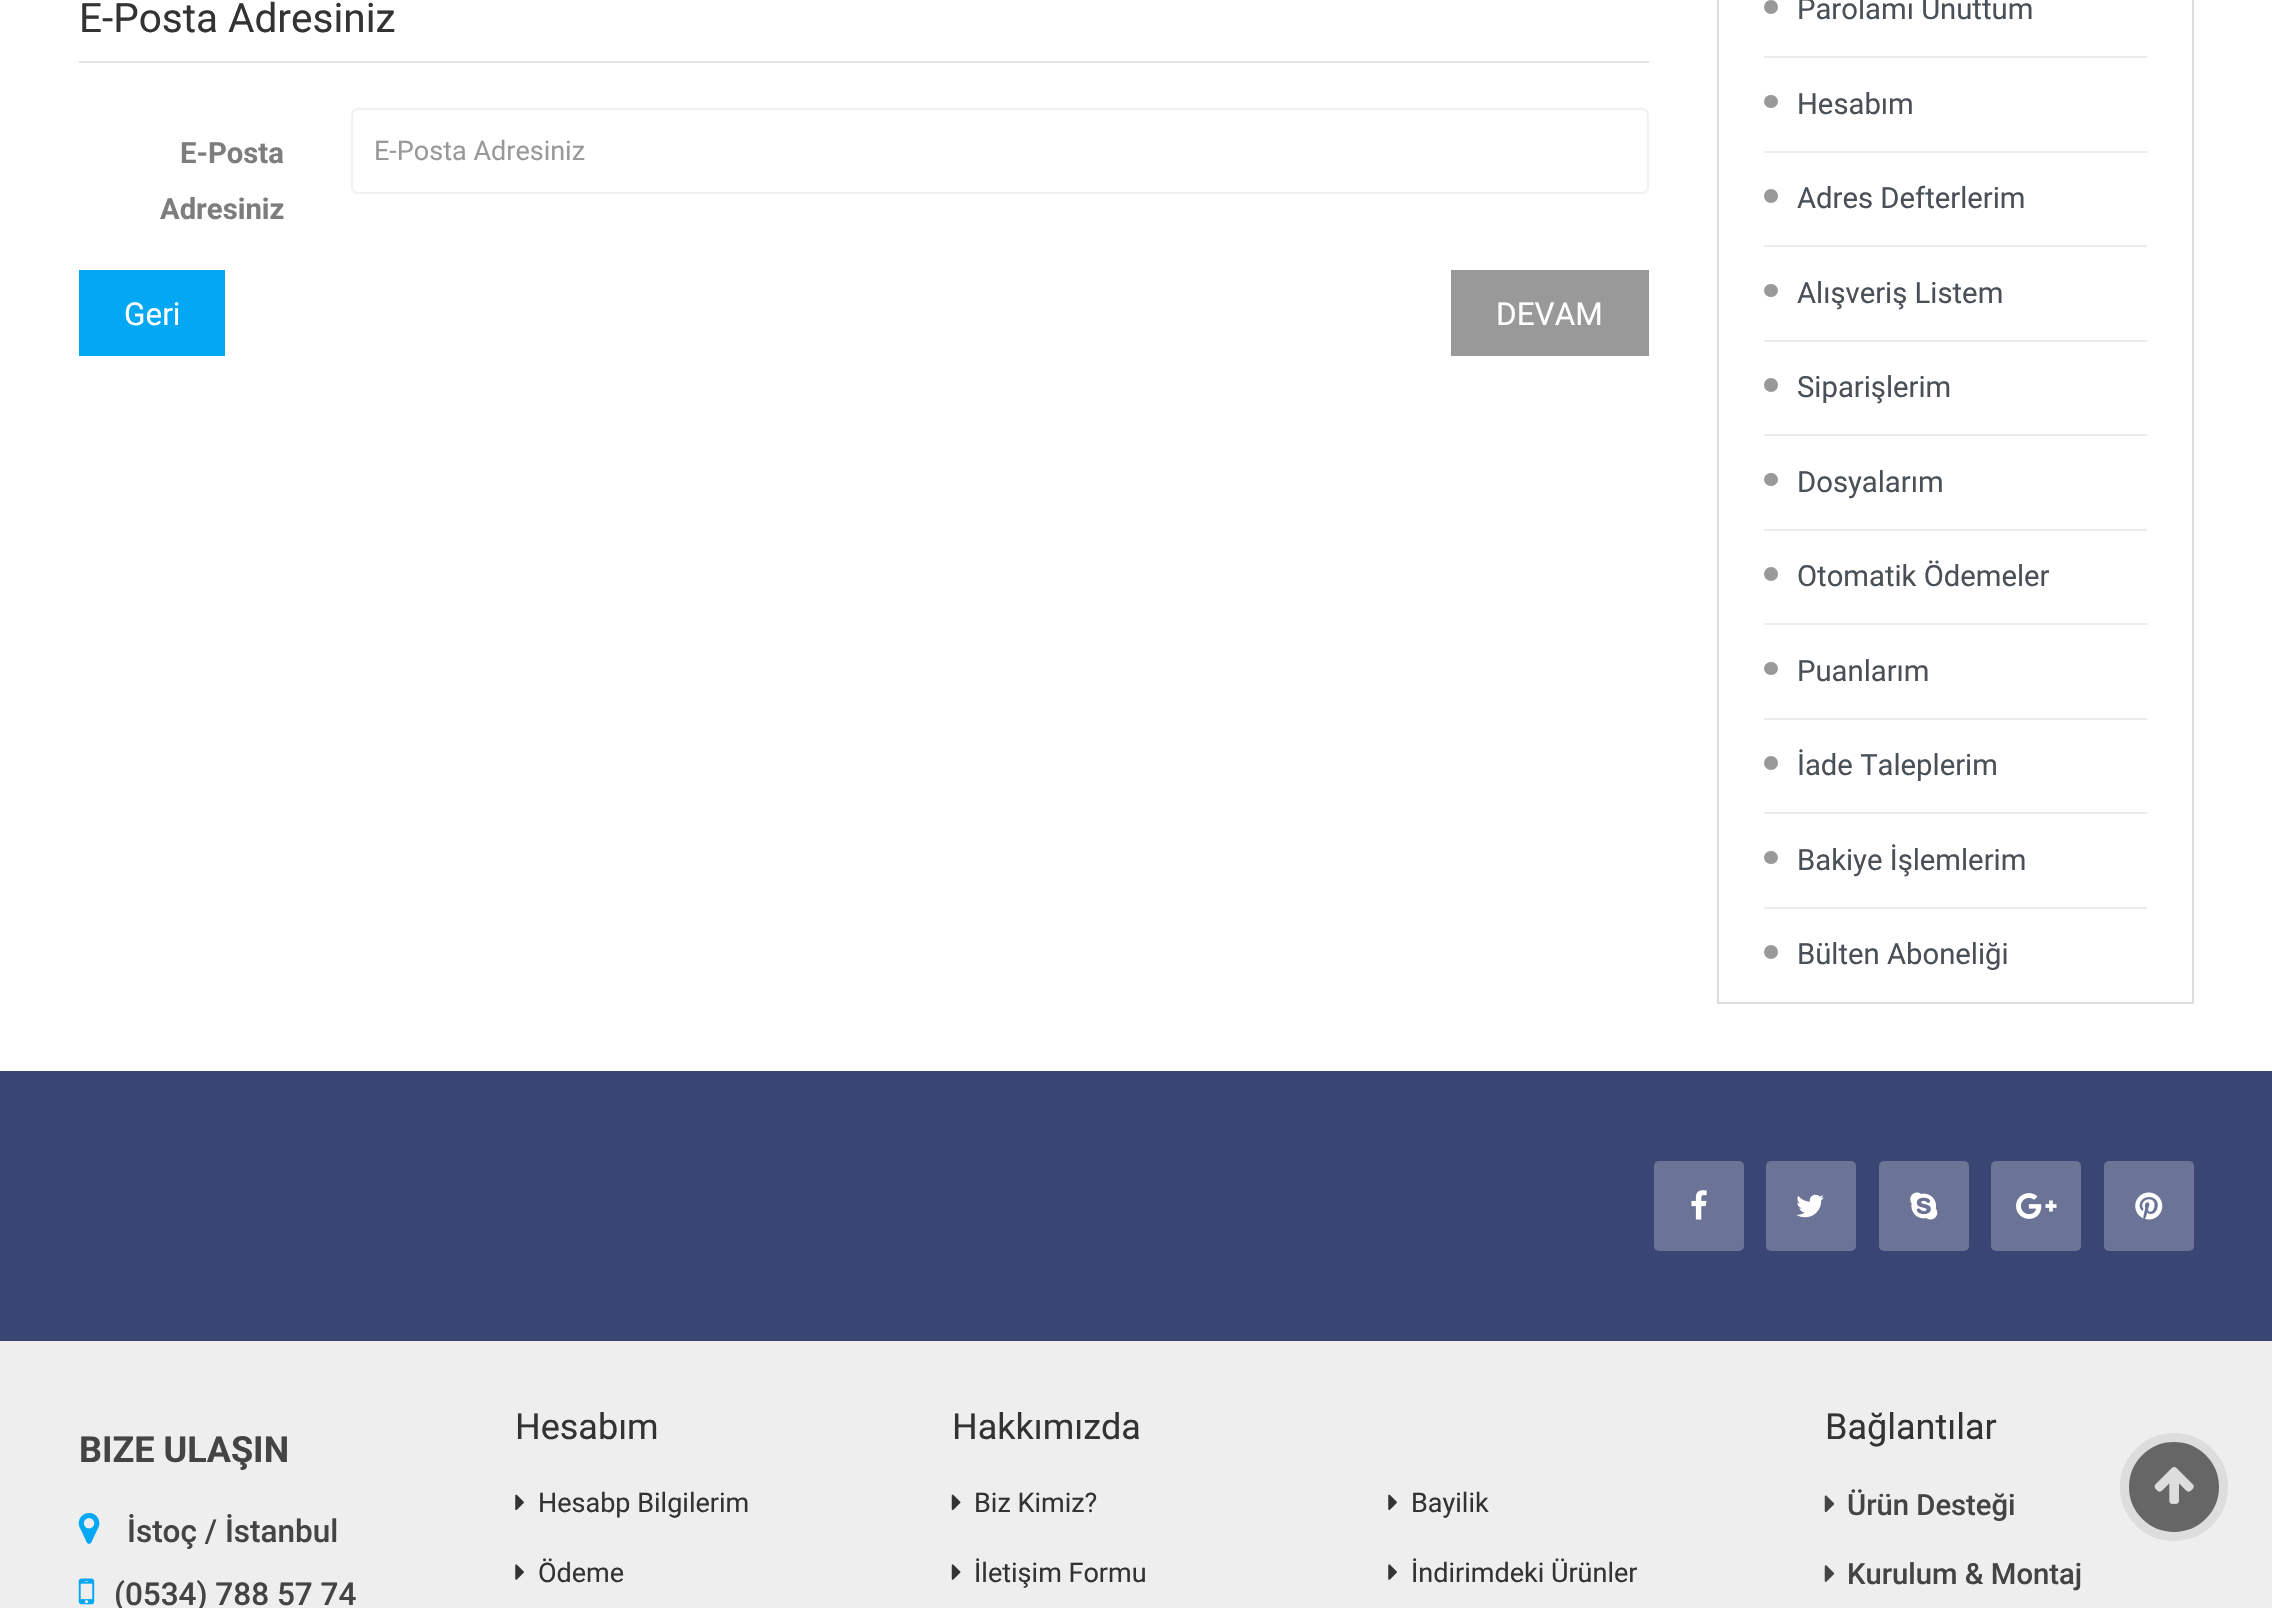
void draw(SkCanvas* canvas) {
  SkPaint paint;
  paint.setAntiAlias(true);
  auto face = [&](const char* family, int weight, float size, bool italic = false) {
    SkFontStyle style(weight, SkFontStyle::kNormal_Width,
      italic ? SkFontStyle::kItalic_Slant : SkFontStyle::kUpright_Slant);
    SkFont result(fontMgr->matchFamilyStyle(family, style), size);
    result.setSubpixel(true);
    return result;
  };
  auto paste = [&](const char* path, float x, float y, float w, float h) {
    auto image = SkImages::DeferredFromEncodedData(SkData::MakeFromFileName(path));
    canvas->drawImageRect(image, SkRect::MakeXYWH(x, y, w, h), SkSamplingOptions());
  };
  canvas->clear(0xffffffff);
  paint.setColor(0xffe5e5e5);
  canvas->drawRect(SkRect::MakeXYWH(79, 61, 1570, 2), paint);
  paint.setStroke(true);
  paint.setStrokeWidth(2);
  paint.setColor(0xfff1f1f1);
  canvas->drawRoundRect(SkRect::MakeXYWH(352, 109, 1296, 84), 6, 6, paint);
  paint.setStroke(false);
  paint.setColor(0xff02a8f3);
  canvas->drawRect(SkRect::MakeXYWH(79, 270, 146, 86), paint);
  paint.setColor(0xff999999);
  canvas->drawRect(SkRect::MakeXYWH(1451, 270, 198, 86), paint);
  paint.setStroke(true);
  paint.setColor(0xffdddddd);
  canvas->drawRect(SkRect::MakeXYWH(1718, -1, 475, 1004), paint);
  paint.setStroke(false);
  paint.setColor(0xffececec);
  canvas->drawRect(SkRect::MakeXYWH(1764, 56, 383, 2), paint);
  paint.setColor(0xff999999);
  canvas->drawCircle(1771, 7, 7, paint);
  paint.setColor(0xffececec);
  canvas->drawRect(SkRect::MakeXYWH(1764, 151, 383, 2), paint);
  paint.setColor(0xff999999);
  canvas->drawRoundRect(SkRect::MakeXYWH(1764, 95, 14, 13), 6.5f, 6.5f, paint);
  paint.setColor(0xffececec);
  canvas->drawRect(SkRect::MakeXYWH(1764, 245, 383, 2), paint);
  paint.setColor(0xff999999);
  canvas->drawCircle(1771, 196, 7, paint);
  paint.setColor(0xffececec);
  canvas->drawRect(SkRect::MakeXYWH(1764, 340, 383, 2), paint);
  paint.setColor(0xff999999);
  canvas->drawRoundRect(SkRect::MakeXYWH(1764, 284, 14, 13), 6.5f, 6.5f, paint);
  paint.setColor(0xffececec);
  canvas->drawRect(SkRect::MakeXYWH(1764, 434, 383, 2), paint);
  paint.setColor(0xff999999);
  canvas->drawCircle(1771, 385, 7, paint);
  paint.setColor(0xffececec);
  canvas->drawRect(SkRect::MakeXYWH(1764, 529, 383, 2), paint);
  paint.setColor(0xff999999);
  canvas->drawRoundRect(SkRect::MakeXYWH(1764, 473, 14, 13), 6.5f, 6.5f, paint);
  paint.setColor(0xffececec);
  canvas->drawRect(SkRect::MakeXYWH(1764, 623, 383, 2), paint);
  paint.setColor(0xff999999);
  canvas->drawCircle(1771, 574, 7, paint);
  paint.setColor(0xffececec);
  canvas->drawRect(SkRect::MakeXYWH(1764, 718, 383, 2), paint);
  paint.setColor(0xff999999);
  canvas->drawRoundRect(SkRect::MakeXYWH(1764, 662, 14, 13), 6.5f, 6.5f, paint);
  paint.setColor(0xffececec);
  canvas->drawRect(SkRect::MakeXYWH(1764, 812, 383, 2), paint);
  paint.setColor(0xff999999);
  canvas->drawCircle(1771, 763, 7, paint);
  paint.setColor(0xffececec);
  canvas->drawRect(SkRect::MakeXYWH(1764, 907, 383, 2), paint);
  paint.setColor(0xff999999);
  canvas->drawRoundRect(SkRect::MakeXYWH(1764, 851, 14, 13), 6.5f, 6.5f, paint);
  canvas->drawCircle(1771, 952, 7, paint);
  paint.setColor(0xffeeeeee);
  canvas->drawRect(SkRect::MakeXYWH(0, 1341, 2272, 267), paint);
  paint.setColor(0xff394673);
  canvas->drawRect(SkRect::MakeXYWH(0, 1071, 2272, 270), paint);
  paint.setColor(0xff6b7496);
  canvas->drawRoundRect(SkRect::MakeXYWH(1654, 1161, 90, 90), 5, 5, paint);
  paste("img/1.png", 1691, 1190, 16, 30);
  canvas->drawRoundRect(SkRect::MakeXYWH(1766, 1161, 90, 90), 5, 5, paint);
  paste("img/2.png", 1796, 1194, 28, 24);
  canvas->drawRoundRect(SkRect::MakeXYWH(1879, 1161, 90, 90), 5, 5, paint);
  paste("img/3.png", 1910, 1192, 28, 28);
  canvas->drawRoundRect(SkRect::MakeXYWH(1991, 1161, 90, 90), 5, 5, paint);
  paste("img/4.png", 2016, 1193, 41, 26);
  canvas->drawRoundRect(SkRect::MakeXYWH(2104, 1161, 90, 90), 5, 5, paint);
  paste("img/5.png", 2135, 1192, 28, 28);
  paste("img/6.png", 78, 1513, 22, 31);
  paste("img/7.png", 78, 1578, 17, 27);
  paste("img/8.png", 515, 1494, 9, 17);
  paste("img/9.png", 515, 1564, 9, 16);
  paste("img/10.png", 951, 1494, 10, 17);
  paste("img/11.png", 951, 1564, 10, 16);
  paste("img/8.png", 1388, 1494, 9, 17);
  paste("img/9.png", 1388, 1564, 9, 16);
  paste("img/12.png", 1824, 1495, 11, 18);
  paste("img/13.png", 1824, 1565, 11, 17);
  paint.setColor(0xff666666);
  canvas->drawCircle(2174, 1487, 49.5f, paint);
  paint.setStroke(true);
  paint.setStrokeWidth(9);
  paint.setColor(0xffdddddd);
  canvas->drawCircle(2174, 1487, 49.5f, paint);
  paste("img/14.png", 2154, 1467, 40, 37);
  auto f0 = face("Roboto", 400, 40.5f);
  paint.setStroke(false);
  paint.setColor(0xff333333);
  canvas->drawString("E-Posta Adresiniz", 79, 32, f0, paint);
  auto f1 = face("Roboto", 700, 29.25f);
  paint.setColor(0xff7d7d7d);
  canvas->drawString("E-Posta", 180, 163, f1, paint);
  canvas->drawString("Adresiniz", 160, 219, f1, paint);
  auto f2 = face("Roboto", 400, 27);
  paint.setColor(0xff999999);
  canvas->drawString("E-Posta Adresiniz", 374, 160, f2, paint);
  auto f3 = face("Roboto", 400, 31.5f);
  paint.setColor(0xffffffff);
  canvas->drawString("Geri", 124, 325, f3, paint);
  canvas->drawString("DEVAM", 1496, 325, f3, paint);
  auto f4 = face("Roboto", 400, 29.25f);
  paint.setColor(0xff495057);
  {
    const struct { const char* s; float x, y; } items[] = {
      {"Parolamı Unuttum", 1797, 19},
      {"Hesabım", 1797, 114},
      {"Adres Defterlerim", 1797, 208},
      {"Alışveriş Listem", 1797, 303},
      {"Siparişlerim", 1797, 397},
      {"Dosyalarım", 1797, 492},
      {"Otomatik Ödemeler", 1797, 586},
      {"Puanlarım", 1797, 681},
      {"İade Taleplerim", 1797, 775},
      {"Bakiye İşlemlerim", 1797, 870},
      {"Bülten Aboneliği", 1797, 964},
    };
    for (auto [s, x, y] : items) {
      canvas->drawString(s, x, y, f4, paint);
    }
  }
  auto f5 = face("Roboto", 700, 36);
  paint.setColor(0xff444444);
  canvas->drawString("BIZE ULAŞIN", 79, 1462, f5, paint);
  auto f6 = face("Roboto", 500, 31.5f);
  canvas->drawString("İstoç / İstanbul", 127, 1542, f6, paint);
  canvas->drawString("(0534) 788 57 74", 114, 1605, f6, paint);
  auto f7 = face("Roboto", 400, 36);
  paint.setColor(0xff333333);
  canvas->drawString("Hesabım", 515, 1439, f7, paint);
  canvas->drawString("Hesabp Bilgilerim", 538, 1512, f2, paint);
  canvas->drawString("Ödeme", 538, 1582, f2, paint);
  canvas->drawString("Hakkımızda", 952, 1439, f7, paint);
  {
    const struct { const char* s; float x, y; } items[] = {
      {"Biz Kimiz?", 974, 1512},
      {"İletişim Formu", 974, 1582},
      {"Bayilik", 1411, 1512},
      {"İndirimdeki Ürünler", 1411, 1582},
    };
    for (auto [s, x, y] : items) {
      canvas->drawString(s, x, y, f2, paint);
    }
  }
  canvas->drawString("Bağlantılar", 1825, 1439, f7, paint);
  auto f8 = face("Roboto", 500, 29.25f);
  paint.setColor(0xff444444);
  canvas->drawString("Ürün Desteği", 1847, 1515, f8, paint);
  canvas->drawString("Kurulum & Montaj", 1847, 1584, f8, paint);
}
